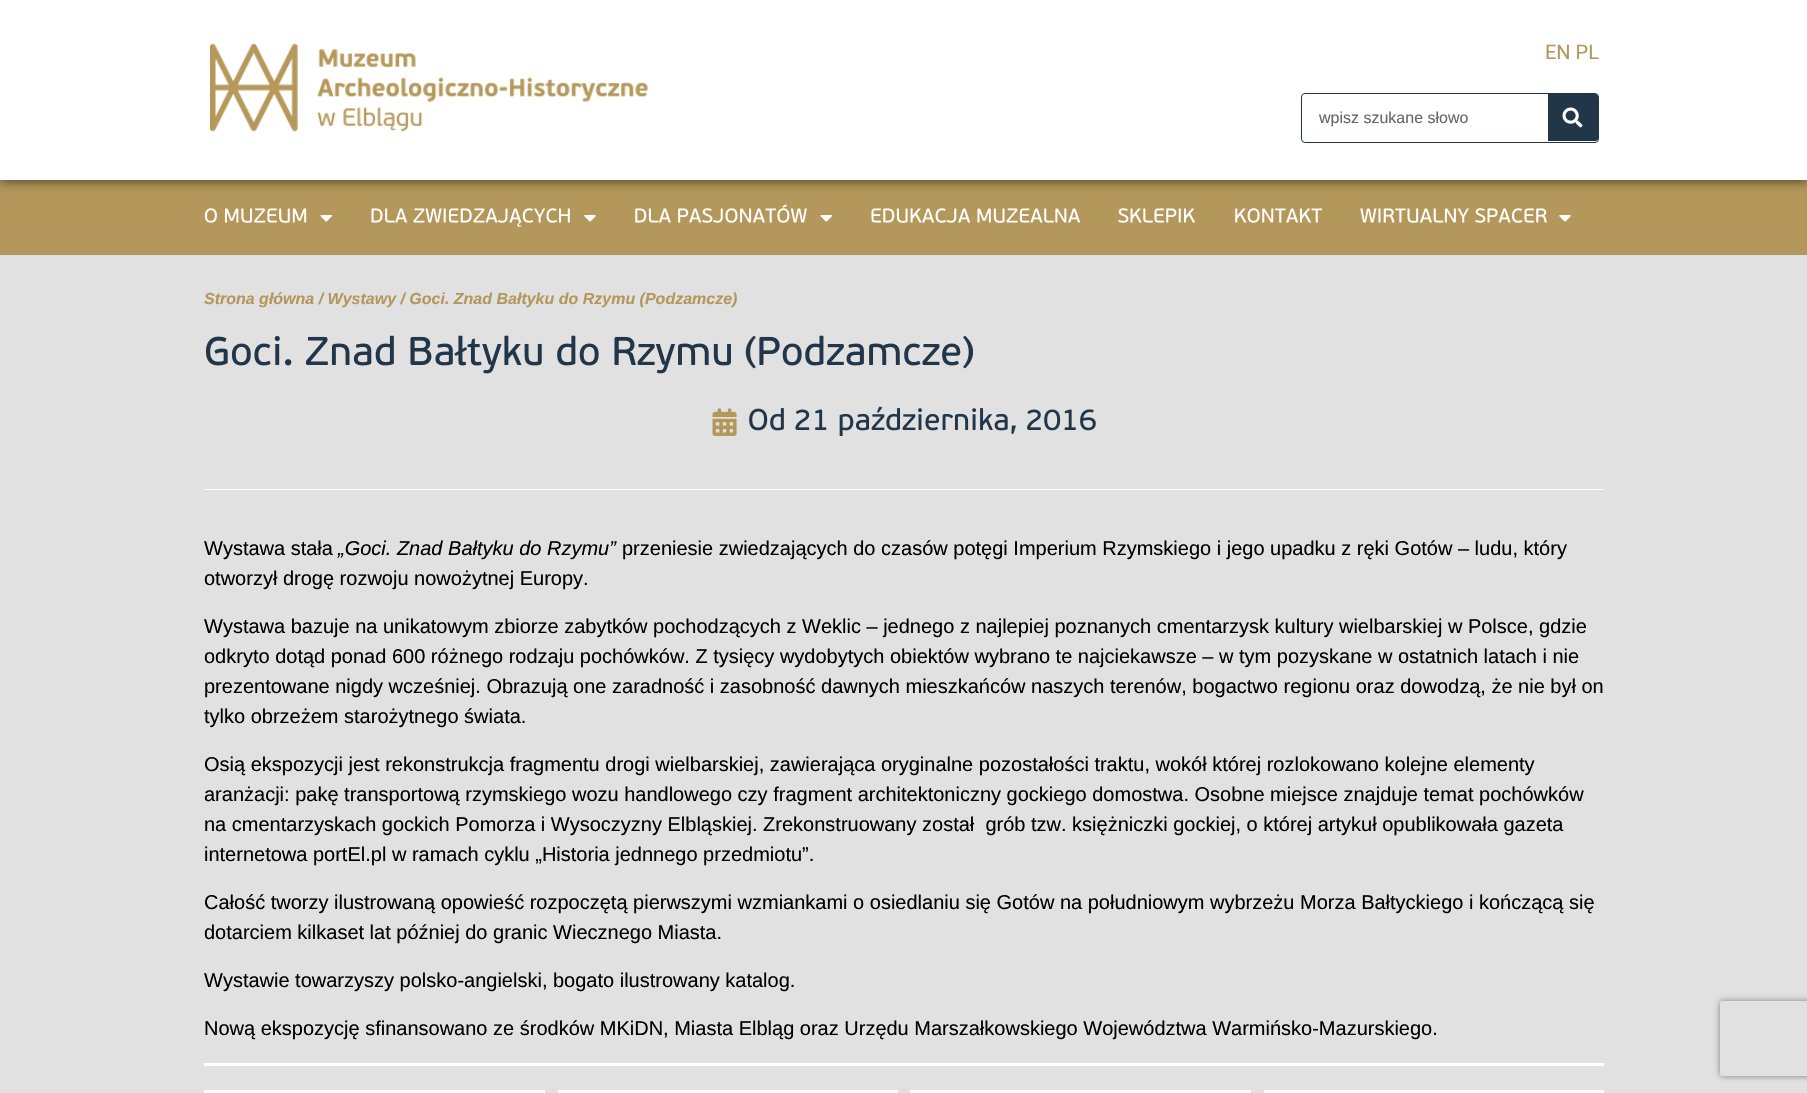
void draw(SkCanvas* canvas) {
  SkPaint paint;
  paint.setAntiAlias(true);
  auto face = [&](const char* family, int weight, float size, bool italic = false) {
    SkFontStyle style(weight, SkFontStyle::kNormal_Width,
      italic ? SkFontStyle::kItalic_Slant : SkFontStyle::kUpright_Slant);
    SkFont result(fontMgr->matchFamilyStyle(family, style), size);
    result.setSubpixel(true);
    return result;
  };
  auto paste = [&](const char* path, float x, float y, float w, float h) {
    auto image = SkImages::DeferredFromEncodedData(SkData::MakeFromFileName(path));
    canvas->drawImageRect(image, SkRect::MakeXYWH(x, y, w, h), SkSamplingOptions());
  };
  auto shape = [&](const char* data, bool evenOdd = false) {
    SkPath result = *SkParsePath::FromSVGString(data);
    if (evenOdd) result.setFillType(SkPathFillType::kEvenOdd);
    return result;
  };
  canvas->clear(0xffe1e1e1);
  paint.setColor(0xffb4975a);
  canvas->drawRect(SkRect::MakeXYWH(0, 180, 1807, 75), paint);
  paint.setColor(0xb3000000);
  paint.setMaskFilter(SkMaskFilter::MakeBlur(kNormal_SkBlurStyle, 6));
  canvas->drawRect(SkRect::MakeXYWH(0, 0, 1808, 180), paint);
  paint.setMaskFilter(nullptr);
  paint.setColor(0xffffffff);
  canvas->drawRect(SkRect::MakeXYWH(0, 0, 1807, 180), paint);
  paste("img/1.png", 210, 43, 438, 89);
  paint.setStroke(true);
  paint.setStrokeWidth(1);
  paint.setColor(0xff213649);
  canvas->drawRoundRect(SkRect::MakeXYWH(1301.5f, 93.5f, 297, 49), 3.5f, 3.5f, paint);
  paint.setStroke(false);
  canvas->drawPath(shape("M1548 94H1595.5C1597 94 1598 95 1598 96.5V138.5C1598 140 1597 141 1595.5 141H1548Z"), paint);
  paste("img/2.png", 1562, 107, 21, 21);
  paste("img/3.png", 204, 208, 103, 15);
  paste("img/4.png", 320, 215, 12, 7);
  paste("img/5.png", 371, 208, 199, 19);
  paste("img/6.png", 584, 215, 12, 7);
  paste("img/7.png", 635, 204, 172, 19);
  paste("img/4.png", 820, 215, 12, 7);
  paste("img/8.png", 871, 208, 210, 15);
  paste("img/9.png", 1118, 208, 78, 15);
  paste("img/10.png", 1235, 208, 88, 15);
  paste("img/11.png", 1360, 208, 187, 15);
  paste("img/6.png", 1559, 215, 12, 7);
  paste("img/12.png", 205, 335, 769, 39);
  paste("img/13.png", 712, 408, 25, 28);
  paste("img/14.png", 749, 408, 35, 23);
  paste("img/15.png", 795, 406, 301, 31);
  paint.setColor(0xffffffff);
  canvas->drawRect(SkRect::MakeXYWH(204, 489, 1400, 1), paint);
  canvas->drawRect(SkRect::MakeXYWH(204, 1063, 1400, 3), paint);
  paint.setStroke(true);
  paint.setStrokeWidth(6);
  canvas->drawRect(SkRect::MakeXYWH(207, 1093, 335, 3), paint);
  canvas->drawRect(SkRect::MakeXYWH(561, 1093, 334, 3), paint);
  canvas->drawRect(SkRect::MakeXYWH(913, 1093, 335, 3), paint);
  canvas->drawRect(SkRect::MakeXYWH(1267, 1093, 334, 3), paint);
  canvas->save();
  canvas->clipPath(shape("M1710 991H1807V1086H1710ZM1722.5 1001H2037.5C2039 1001 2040 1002 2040 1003.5V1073.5C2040 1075 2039 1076 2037.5 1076H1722.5C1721 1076 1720 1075 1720 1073.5V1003.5C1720 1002 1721 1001 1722.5 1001Z", true), true);
  paint.setStroke(false);
  paint.setColor(0xff808080);
  paint.setMaskFilter(SkMaskFilter::MakeBlur(kNormal_SkBlurStyle, 3));
  canvas->drawRoundRect(SkRect::MakeXYWH(1720, 1001, 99, 75), 2.5f, 2.5f, paint);
  paint.setMaskFilter(nullptr);
  canvas->restore();
  auto f0 = face("Roboto", 400, 20);
  paint.setColor(0xffb4975a);
  canvas->drawString("EN PL", 1545, 59, f0, paint);
  auto f1 = face("Liberation Sans", 400, 16);
  paint.setColor(0xff666666);
  canvas->drawString("wpisz szukane słowo", 1319, 123, f1, paint);
  auto f2 = face("Liberation Sans", 700, 16, true);
  paint.setColor(0xffb4975a);
  canvas->drawString("Strona główna / Wystawy / Goci. Znad Bałtyku do Rzymu (Podzamcze)", 204, 304, f2, paint);
  auto f3 = face("Liberation Sans", 400, 20);
  paint.setColor(0xff000000);
  canvas->drawString("Wystawa stała", 204, 555, f3, paint);
  auto f4 = face("Liberation Sans", 400, 20, true);
  canvas->drawString("„Goci. Znad Bałtyku do Rzymu”", 338, 555, f4, paint);
  {
    const struct { const char* s; float x, y; } items[] = {
      {"przeniesie zwiedzających do czasów potęgi Imperium Rzymskiego i jego upadku z ręki Gotów – ludu, który", 622, 555},
      {"otworzył drogę rozwoju nowożytnej Europy.", 204, 585},
      {"Wystawa bazuje na unikatowym zbiorze zabytków pochodzących z Weklic – jednego z najlepiej poznanych cmentarzysk kultury wielbarskiej w Polsce, gdzie", 204, 633},
      {"odkryto dotąd ponad 600 różnego rodzaju pochówków. Z tysięcy wydobytych obiektów wybrano te najciekawsze – w tym pozyskane w ostatnich latach i nie", 204, 663},
      {"prezentowane nigdy wcześniej. Obrazują one zaradność i zasobność dawnych mieszkańców naszych terenów, bogactwo regionu oraz dowodzą, że nie był on", 204, 693},
      {"tylko obrzeżem starożytnego świata.", 204, 723},
      {"Osią ekspozycji jest rekonstrukcja fragmentu drogi wielbarskiej, zawierająca oryginalne pozostałości traktu, wokół której rozlokowano kolejne elementy", 204, 771},
      {"aranżacji: pakę transportową rzymskiego wozu handlowego czy fragment architektoniczny gockiego domostwa. Osobne miejsce znajduje temat pochówków", 204, 801},
      {"na cmentarzyskach gockich Pomorza i Wysoczyzny Elbląskiej. Zrekonstruowany został  grób tzw. księżniczki gockiej, o której artykuł opublikowała gazeta", 204, 831},
      {"internetowa portEl.pl w ramach cyklu „Historia jednnego przedmiotu”.", 204, 861},
      {"Całość tworzy ilustrowaną opowieść rozpoczętą pierwszymi wzmiankami o osiedlaniu się Gotów na południowym wybrzeżu Morza Bałtyckiego i kończącą się", 204, 909},
      {"dotarciem kilkaset lat później do granic Wiecznego Miasta.", 204, 939},
      {"Wystawie towarzyszy polsko-angielski, bogato ilustrowany katalog.", 204, 987},
      {"Nową ekspozycję sfinansowano ze środków MKiDN, Miasta Elbląg oraz Urzędu Marszałkowskiego Województwa Warmińsko-Mazurskiego.", 204, 1035},
    };
    for (auto [s, x, y] : items) {
      canvas->drawString(s, x, y, f3, paint);
    }
  }
}
